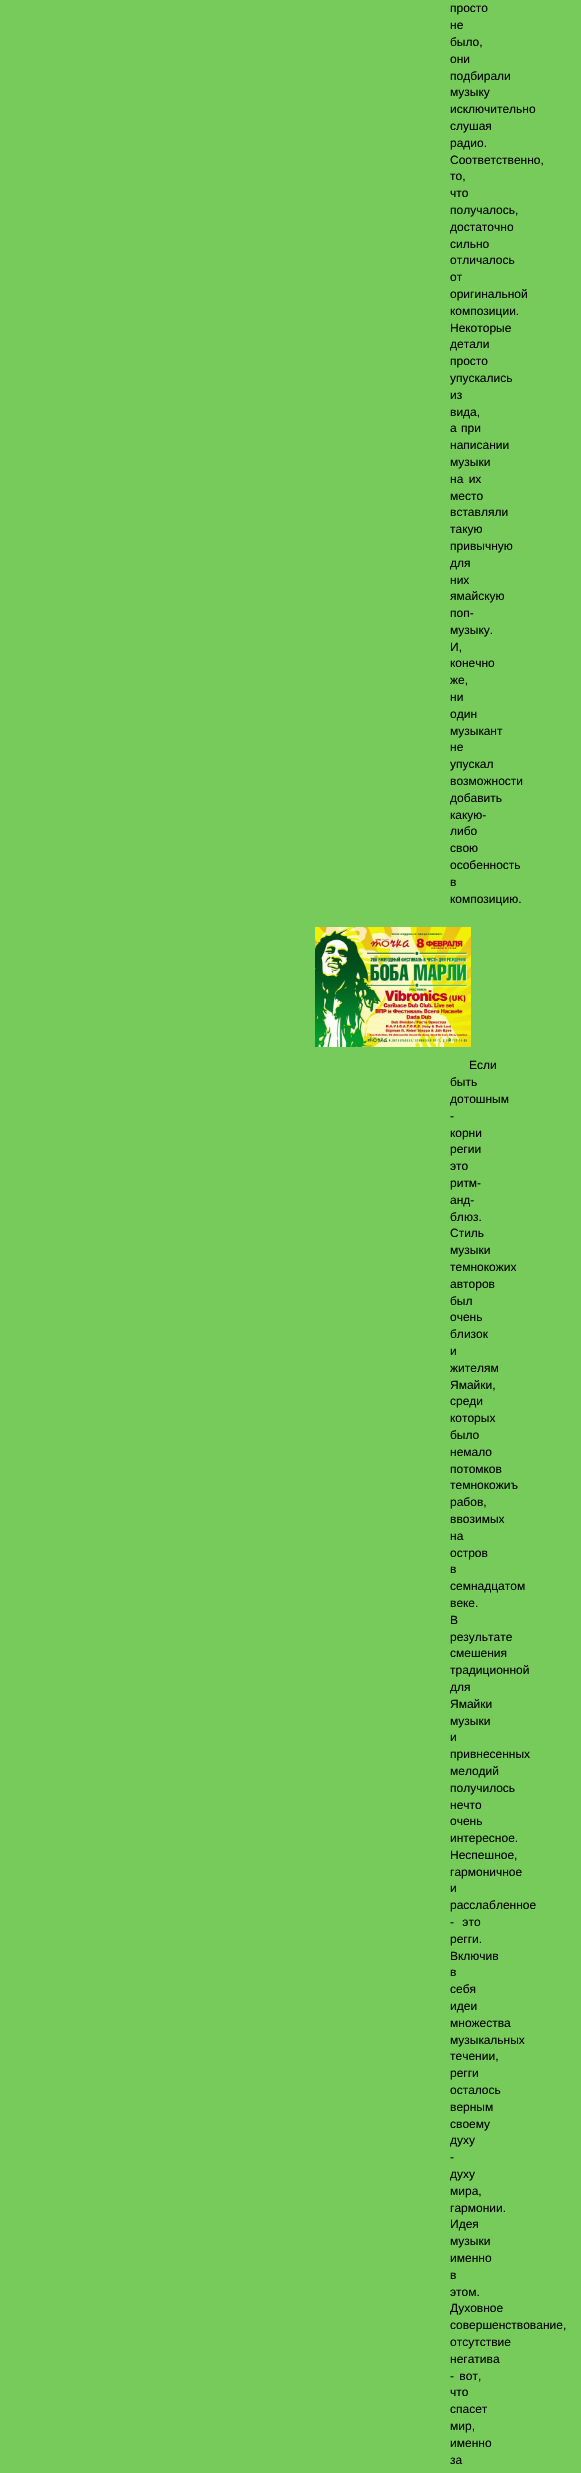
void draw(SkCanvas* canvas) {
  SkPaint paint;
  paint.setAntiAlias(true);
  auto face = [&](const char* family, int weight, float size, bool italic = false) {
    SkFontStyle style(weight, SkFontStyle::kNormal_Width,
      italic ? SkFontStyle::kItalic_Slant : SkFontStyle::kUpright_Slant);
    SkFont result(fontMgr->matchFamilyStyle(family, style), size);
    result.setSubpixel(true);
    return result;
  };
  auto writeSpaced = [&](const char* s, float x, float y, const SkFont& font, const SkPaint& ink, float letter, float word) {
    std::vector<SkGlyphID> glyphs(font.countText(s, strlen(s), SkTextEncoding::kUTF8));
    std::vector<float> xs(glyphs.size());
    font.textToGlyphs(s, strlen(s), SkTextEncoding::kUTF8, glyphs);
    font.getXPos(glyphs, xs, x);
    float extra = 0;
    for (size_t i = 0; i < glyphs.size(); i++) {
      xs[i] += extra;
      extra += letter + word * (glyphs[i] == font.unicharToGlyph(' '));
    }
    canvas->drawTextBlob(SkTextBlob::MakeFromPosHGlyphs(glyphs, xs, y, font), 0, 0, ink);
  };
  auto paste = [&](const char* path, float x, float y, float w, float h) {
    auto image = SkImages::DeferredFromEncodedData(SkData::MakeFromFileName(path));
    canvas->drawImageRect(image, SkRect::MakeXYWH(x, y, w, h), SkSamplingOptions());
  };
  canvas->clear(0xff77cb5a);
  paste("img/1.png", 315, 927, 156, 120);
  auto f0 = face("Liberation Sans", 400, 12);
  paint.setColor(0xff000000);
  {
    const struct { const char* s; float x, y; } items[] = {
      {"просто", 450, 12},
      {"не", 450, 29},
      {"было,", 450, 46},
      {"они", 450, 63},
      {"подбирали", 450, 80},
      {"музыку", 450, 96},
      {"исключительно", 450, 113},
      {"слушая", 450, 130},
      {"радио.", 450, 147},
      {"Соответственно,", 450, 164},
      {"то,", 450, 180},
      {"что", 450, 197},
      {"получалось,", 450, 214},
      {"достаточно", 450, 231},
      {"сильно", 450, 248},
      {"отличалось", 450, 264},
      {"от", 450, 281},
      {"оригинальной", 450, 298},
      {"композиции.", 450, 315},
      {"Некоторые", 450, 332},
      {"детали", 450, 348},
      {"просто", 450, 365},
      {"упускались", 450, 382},
      {"из", 450, 399},
      {"вида,", 450, 416},
    };
    for (auto [s, x, y] : items) {
      canvas->drawString(s, x, y, f0, paint);
    }
  }
  writeSpaced("а при", 450, 432, f0, paint, 0, 1);
  canvas->drawString("написании", 450, 449, f0, paint);
  canvas->drawString("музыки", 450, 466, f0, paint);
  writeSpaced("на их", 450, 483, f0, paint, 0, 2);
  {
    const struct { const char* s; float x, y; } items[] = {
      {"место", 450, 500},
      {"вставляли", 450, 516},
      {"такую", 450, 533},
      {"привычную", 450, 550},
      {"для", 450, 567},
      {"них", 450, 584},
      {"ямайскую", 450, 600},
      {"поп-", 450, 617},
      {"музыку.", 450, 634},
      {"И,", 450, 651},
      {"конечно", 450, 667},
      {"же,", 450, 684},
      {"ни", 450, 701},
      {"один", 450, 718},
      {"музыкант", 450, 735},
      {"не", 450, 751},
      {"упускал", 450, 768},
      {"возможности", 450, 785},
      {"добавить", 450, 802},
      {"какую-", 450, 819},
      {"либо", 450, 835},
      {"свою", 450, 852},
      {"особенность", 450, 869},
      {"в", 450, 886},
      {"композицию.", 450, 903},
      {"Если", 469, 1069},
      {"быть", 450, 1086},
      {"дотошным", 450, 1103},
      {"-", 450, 1120},
      {"корни", 450, 1137},
      {"регии", 450, 1153},
      {"это", 450, 1170},
      {"ритм-", 450, 1187},
      {"анд-", 450, 1204},
      {"блюз.", 450, 1221},
      {"Стиль", 450, 1237},
      {"музыки", 450, 1254},
      {"темнокожих", 450, 1271},
      {"авторов", 450, 1288},
      {"был", 450, 1305},
      {"очень", 450, 1321},
      {"близок", 450, 1338},
      {"и", 450, 1355},
      {"жителям", 450, 1372},
      {"Ямайки,", 450, 1389},
      {"среди", 450, 1405},
      {"которых", 450, 1422},
      {"было", 450, 1439},
      {"немало", 450, 1456},
      {"потомков", 450, 1473},
      {"темнокожиъ", 450, 1489},
      {"рабов,", 450, 1506},
      {"ввозимых", 450, 1523},
      {"на", 450, 1540},
      {"остров", 450, 1557},
      {"в", 450, 1573},
      {"семнадцатом", 450, 1590},
      {"веке.", 450, 1607},
      {"В", 450, 1624},
      {"результате", 450, 1641},
      {"смешения", 450, 1657},
      {"традиционной", 450, 1674},
      {"для", 450, 1691},
      {"Ямайки", 450, 1708},
      {"музыки", 450, 1725},
      {"и", 450, 1741},
      {"привнесенных", 450, 1758},
      {"мелодий", 450, 1775},
      {"получилось", 450, 1792},
      {"нечто", 450, 1809},
      {"очень", 450, 1825},
      {"интересное.", 450, 1842},
      {"Неспешное,", 450, 1859},
      {"гармоничное", 450, 1876},
      {"и", 450, 1892},
      {"расслабленное", 450, 1909},
    };
    for (auto [s, x, y] : items) {
      canvas->drawString(s, x, y, f0, paint);
    }
  }
  writeSpaced("- это", 450, 1926, f0, paint, 0, 5);
  {
    const struct { const char* s; float x, y; } items[] = {
      {"регги.", 450, 1943},
      {"Включив", 450, 1960},
      {"в", 450, 1976},
      {"себя", 450, 1993},
      {"идеи", 450, 2010},
      {"множества", 450, 2027},
      {"музыкальных", 450, 2044},
      {"течении,", 450, 2060},
      {"регги", 450, 2077},
      {"осталось", 450, 2094},
      {"верным", 450, 2111},
      {"своему", 450, 2128},
      {"духу", 450, 2144},
      {"-", 450, 2161},
      {"духу", 450, 2178},
      {"мира,", 450, 2195},
      {"гармонии.", 450, 2212},
      {"Идея", 450, 2228},
      {"музыки", 450, 2245},
      {"именно", 450, 2262},
      {"в", 450, 2279},
      {"этом.", 450, 2296},
      {"Духовное", 450, 2312},
      {"совершенствование,", 450, 2329},
      {"отсутствие", 450, 2346},
      {"негатива", 450, 2363},
    };
    for (auto [s, x, y] : items) {
      canvas->drawString(s, x, y, f0, paint);
    }
  }
  writeSpaced("- вот,", 450, 2380, f0, paint, 0, 2);
  {
    const struct { const char* s; float x, y; } items[] = {
      {"что", 450, 2396},
      {"спасет", 450, 2413},
      {"мир,", 450, 2430},
      {"именно", 450, 2447},
      {"за", 450, 2464},
    };
    for (auto [s, x, y] : items) {
      canvas->drawString(s, x, y, f0, paint);
    }
  }
}
